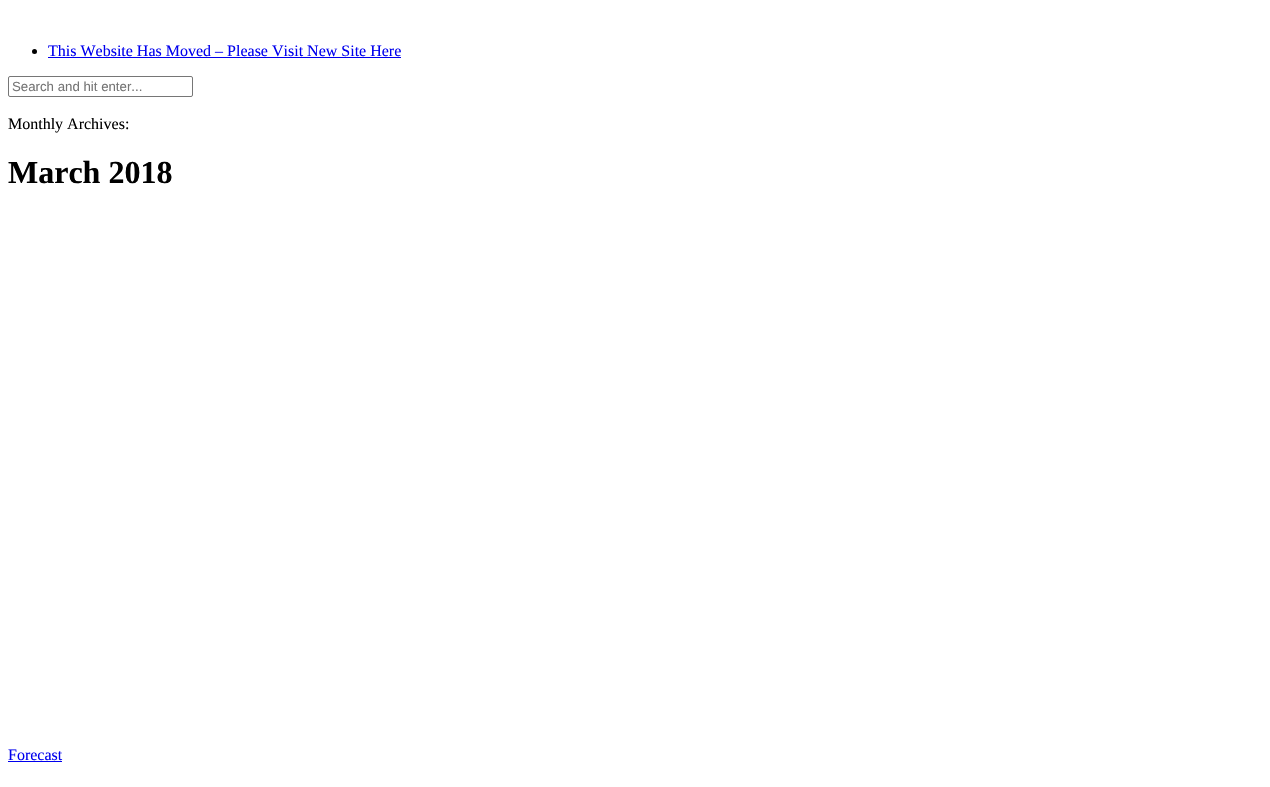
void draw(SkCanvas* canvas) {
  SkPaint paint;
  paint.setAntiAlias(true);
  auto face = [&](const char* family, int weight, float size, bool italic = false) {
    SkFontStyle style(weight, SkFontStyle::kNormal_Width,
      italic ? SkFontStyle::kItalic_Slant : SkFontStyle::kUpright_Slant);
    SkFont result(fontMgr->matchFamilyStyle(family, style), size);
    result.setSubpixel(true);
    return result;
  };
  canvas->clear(0xffffffff);
  paint.setColor(0xff000000);
  canvas->drawCircle(34.5f, 51.5f, 2.5f, paint);
  paint.setColor(0xff0000ee);
  canvas->drawRect(SkRect::MakeXYWH(48, 57, 353, 1), paint);
  paint.setStroke(true);
  paint.setStrokeWidth(1);
  paint.setColor(0xff767676);
  canvas->drawRoundRect(SkRect::MakeXYWH(8.5f, 76.5f, 184, 20), 1.5f, 1.5f, paint);
  paint.setStroke(false);
  paint.setColor(0xff0000ee);
  canvas->drawRect(SkRect::MakeXYWH(8, 761, 54, 1), paint);
  auto f0 = face("Liberation Serif", 400, 16);
  canvas->drawString("This Website Has Moved – Please Visit New Site Here", 48, 56, f0, paint);
  auto f1 = face("Liberation Sans", 400, 13.25f);
  paint.setColor(0xff757575);
  canvas->drawString("Search and hit enter...", 12, 91, f1, paint);
  paint.setColor(0xff000000);
  canvas->drawString("Monthly Archives:", 8, 129, f0, paint);
  auto f2 = face("Liberation Serif", 700, 32);
  canvas->drawString("March 2018", 8, 183, f2, paint);
  paint.setColor(0xff0000ee);
  canvas->drawString("Forecast", 8, 760, f0, paint);
}
